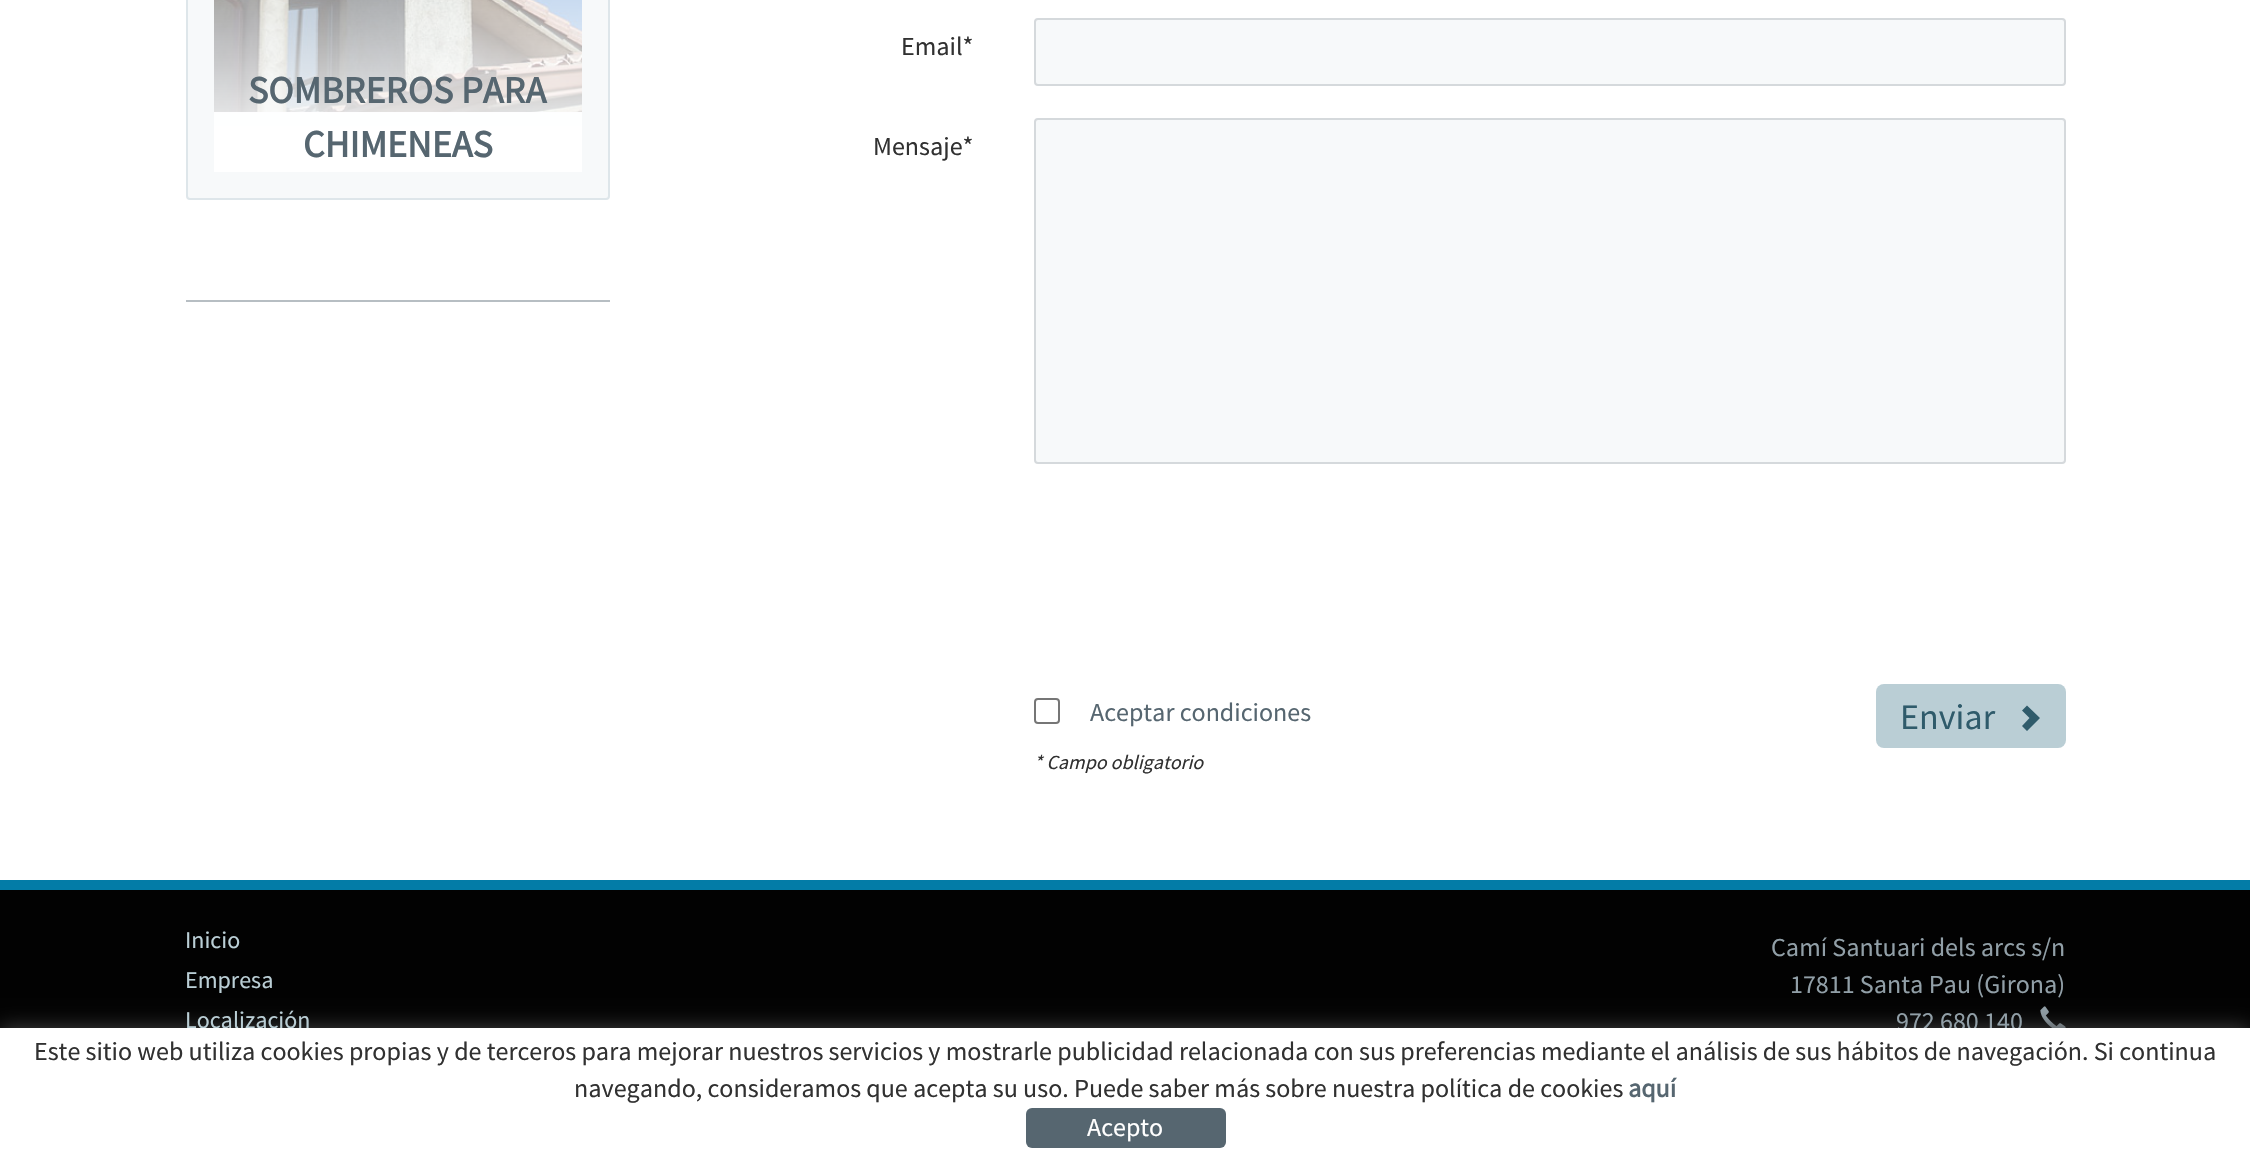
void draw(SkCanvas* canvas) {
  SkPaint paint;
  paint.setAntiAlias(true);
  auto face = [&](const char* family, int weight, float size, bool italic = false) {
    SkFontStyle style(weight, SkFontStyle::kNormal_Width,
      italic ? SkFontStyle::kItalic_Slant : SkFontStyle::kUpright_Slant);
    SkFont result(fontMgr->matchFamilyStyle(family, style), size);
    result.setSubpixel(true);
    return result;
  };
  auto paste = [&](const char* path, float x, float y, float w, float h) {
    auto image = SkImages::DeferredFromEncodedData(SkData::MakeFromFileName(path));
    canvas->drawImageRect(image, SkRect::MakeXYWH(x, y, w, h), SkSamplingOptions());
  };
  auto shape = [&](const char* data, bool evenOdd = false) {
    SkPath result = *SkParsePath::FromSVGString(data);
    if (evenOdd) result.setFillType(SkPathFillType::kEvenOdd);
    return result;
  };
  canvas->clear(0xffffffff);
  paint.setColor(0xfff7f9fa);
  canvas->drawRoundRect(SkRect::MakeXYWH(187, -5, 422, 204), 3, 3, paint);
  paint.setStroke(true);
  paint.setStrokeWidth(2);
  paint.setColor(0xffdee6ea);
  canvas->drawRoundRect(SkRect::MakeXYWH(187, -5, 422, 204), 3, 3, paint);
  paste("img/1.png", 214, 0, 368, 112);
  paint.setStroke(false);
  {
    const SkColor colors[] = {0x00ffffff, 0xffffffff};
    const float stops[] = {0, 1};
    const SkPoint ends[] = {{398, -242}, {398, 172}};
    paint.setShader(SkGradientShader::MakeLinear(ends, colors, stops, 2, SkTileMode::kClamp));
    paint.setAlpha(255);
  }
  canvas->drawRect(SkRect::MakeXYWH(214, 0, 368, 172), paint);
  paint.setShader(nullptr);
  paint.setColor(0xffb7bec3);
  canvas->drawRect(SkRect::MakeXYWH(186, 300, 424, 2), paint);
  paint.setColor(0xfff7f9fa);
  canvas->drawRoundRect(SkRect::MakeXYWH(1035, 19, 1030, 66), 3, 3, paint);
  paint.setStroke(true);
  paint.setColor(0xffd5d9dc);
  canvas->drawRoundRect(SkRect::MakeXYWH(1035, 19, 1030, 66), 3, 3, paint);
  paint.setStroke(false);
  paint.setColor(0xfff7f9fa);
  canvas->drawRoundRect(SkRect::MakeXYWH(1035, 119, 1030, 344), 3, 3, paint);
  paint.setStroke(true);
  paint.setColor(0xffd5d9dc);
  canvas->drawRoundRect(SkRect::MakeXYWH(1035, 119, 1030, 344), 3, 3, paint);
  paint.setColor(0xff767676);
  canvas->drawRoundRect(SkRect::MakeXYWH(1035, 699, 24, 24), 3, 3, paint);
  paint.setStroke(false);
  paint.setColor(0xffbaced5);
  canvas->drawRoundRect(SkRect::MakeXYWH(1876, 684, 190, 64), 8, 8, paint);
  paint.setColor(0xff2f5b6b);
  canvas->drawPath(shape("M2022 726L2029.5 718L2022 710.5L2027 705.5L2040 718L2027 731Z"), paint);
  paint.setColor(0xff020202);
  canvas->drawRect(SkRect::MakeXYWH(0, 890, 2250, 138), paint);
  paint.setColor(0xff037ca7);
  canvas->drawRect(SkRect::MakeXYWH(0, 880, 2250, 10), paint);
  paste("img/2.png", 2040, 1006, 26, 22);
  paint.setColor(0xff444444);
  paint.setMaskFilter(SkMaskFilter::MakeBlur(kNormal_SkBlurStyle, 10));
  canvas->drawRect(SkRect::MakeXYWH(0, 1028, 2250, 146), paint);
  paint.setMaskFilter(nullptr);
  auto f0 = face("Source Sans Pro", 700, 38);
  paint.setColor(0xff566670);
  canvas->drawString("SOMBREROS PARA", 248, 103, f0, paint);
  canvas->drawString("CHIMENEAS", 303, 157, f0, paint);
  auto f1 = face("Source Sans Pro", 400, 26);
  paint.setColor(0xff313131);
  canvas->drawString("Email*", 901, 55, f1, paint);
  canvas->drawString("Mensaje*", 873, 155, f1, paint);
  paint.setColor(0xff566670);
  canvas->drawString("Aceptar condiciones", 1090, 721, f1, paint);
  auto f2 = face("Source Sans Pro", 400, 36);
  paint.setColor(0xff2f5b6b);
  canvas->drawString("Enviar", 1900, 729, f2, paint);
  auto f3 = face("Source Sans Pro", 400, 20, true);
  paint.setColor(0xff313131);
  canvas->drawString("* Campo obligatorio", 1034, 769, f3, paint);
  auto f4 = face("Source Sans Pro", 400, 24);
  paint.setColor(0xffbaced5);
  {
    const struct { const char* s; float x, y; } items[] = {
      {"Inicio", 185, 948},
      {"Empresa", 185, 988},
      {"Localización", 185, 1028},
    };
    for (auto [s, x, y] : items) {
      canvas->drawString(s, x, y, f4, paint);
    }
  }
  paint.setColor(0xff919fa7);
  {
    const struct { const char* s; float x, y; } items[] = {
      {"Camí Santuari dels arcs s/n", 1771, 956},
      {"17811 Santa Pau (Girona)", 1790, 993},
      {"972 680 140", 1896, 1030},
    };
    for (auto [s, x, y] : items) {
      canvas->drawString(s, x, y, f1, paint);
    }
  }
  paint.setColor(0xffffffff);
  canvas->drawRect(SkRect::MakeXYWH(0, 1028, 2250, 146), paint);
  paint.setColor(0xff313131);
  canvas->drawString("Este sitio web utiliza cookies propias y de terceros para mejorar nuestros servicios y mostrarle publicidad relacionada con sus preferencias mediante el análisis de sus hábitos de navegación. Si continua", 34, 1060, f1, paint);
  canvas->drawString("navegando, consideramos que acepta su uso. Puede saber más sobre nuestra política de cookies", 574, 1097, f1, paint);
  auto f5 = face("Source Sans Pro", 700, 26);
  paint.setColor(0xff566670);
  canvas->drawString("aquí", 1628, 1097, f5, paint);
  canvas->drawRoundRect(SkRect::MakeXYWH(1026, 1108, 200, 40), 6, 6, paint);
  paint.setColor(0xffffffff);
  canvas->drawString("Acepto", 1087, 1136, f1, paint);
}
